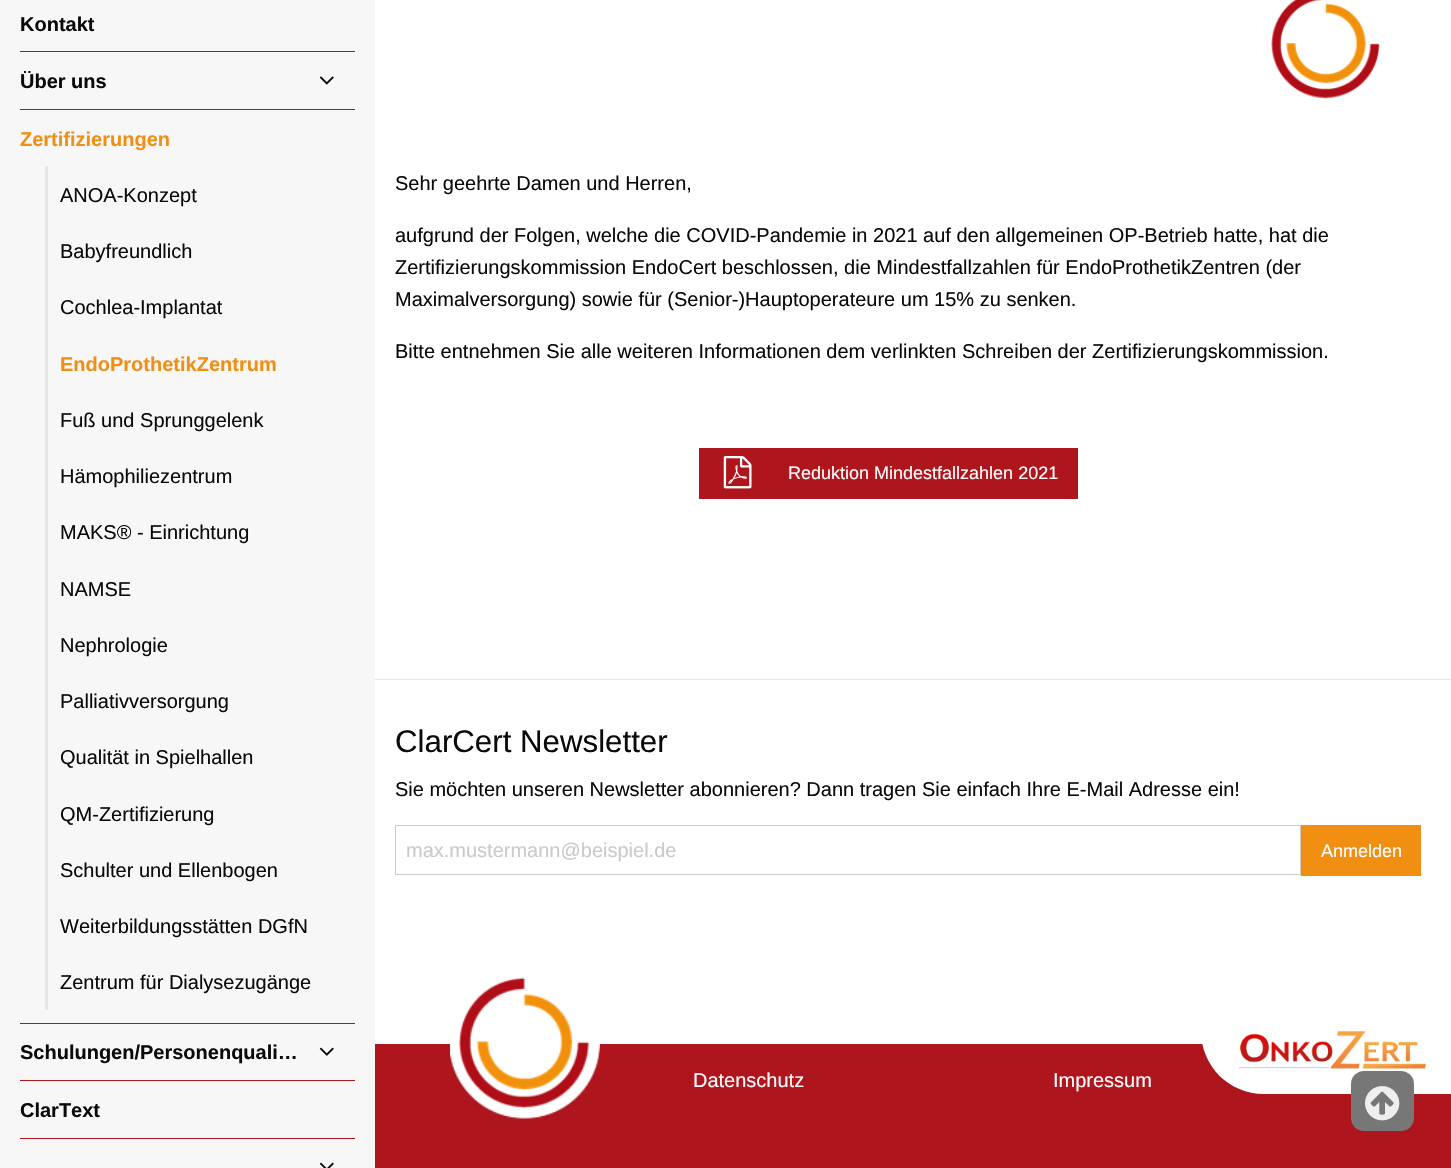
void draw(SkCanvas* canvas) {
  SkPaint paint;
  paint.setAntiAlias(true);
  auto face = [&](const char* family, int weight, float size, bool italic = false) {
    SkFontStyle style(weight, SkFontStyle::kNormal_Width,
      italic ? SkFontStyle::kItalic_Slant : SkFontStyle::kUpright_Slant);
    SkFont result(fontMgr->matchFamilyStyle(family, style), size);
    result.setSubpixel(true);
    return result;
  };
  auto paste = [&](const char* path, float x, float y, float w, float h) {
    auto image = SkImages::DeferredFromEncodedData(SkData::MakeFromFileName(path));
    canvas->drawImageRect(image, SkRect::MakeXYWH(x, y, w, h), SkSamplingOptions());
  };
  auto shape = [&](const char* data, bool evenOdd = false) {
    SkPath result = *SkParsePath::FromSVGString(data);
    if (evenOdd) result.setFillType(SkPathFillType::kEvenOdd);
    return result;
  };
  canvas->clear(0xffffffff);
  {
    const struct { float x, y, w, h; SkColor color; } items[] = {
      {0, 0, 375, 1168, 0xfff7f7f7},
      {20, 51, 335, 1, 0xffae151d},
      {20, 109, 335, 1, 0xffae151d},
    };
    for (auto [x, y, w, h, color] : items) {
      paint.setColor(color);
      canvas->drawRect(SkRect::MakeXYWH(x, y, w, h), paint);
    }
  }
  paste("img/1.png", 319, 76, 15, 9);
  {
    const struct { float x, y, w, h; SkColor color; } items[] = {
      {20, 1023, 335, 1, 0xffae151d},
      {45, 166, 3, 844, 0xffe6e6e6},
      {20, 1080, 335, 1, 0xffae151d},
    };
    for (auto [x, y, w, h, color] : items) {
      paint.setColor(color);
      canvas->drawRect(SkRect::MakeXYWH(x, y, w, h), paint);
    }
  }
  paste("img/2.png", 319, 1047, 15, 9);
  canvas->drawRect(SkRect::MakeXYWH(20, 1138, 335, 1), paint);
  paste("img/3.png", 319, 1162, 15, 6);
  paste("img/4.png", 1271, 0, 109, 99);
  canvas->drawRect(SkRect::MakeXYWH(699, 448, 379, 51), paint);
  paste("img/5.png", 723, 456, 29, 33);
  paint.setColor(0xffe6e6e6);
  canvas->drawRect(SkRect::MakeXYWH(375, 679, 1076, 1), paint);
  paint.setStroke(true);
  paint.setStrokeWidth(1);
  paint.setColor(0xffcacaca);
  canvas->drawRect(SkRect::MakeXYWH(395.5f, 825.5f, 905, 49), paint);
  paint.setStroke(false);
  paint.setColor(0xfff18f13);
  canvas->drawRect(SkRect::MakeXYWH(1301, 825, 120, 51), paint);
  paint.setColor(0xffae151d);
  canvas->drawRect(SkRect::MakeXYWH(375, 1044, 1076, 124), paint);
  paste("img/6.png", 450, 977, 150, 142);
  paint.setColor(0xffffffff);
  canvas->drawPath(shape("M1201 1006H1451V1094H1264C1229 1094 1201 1066 1201 1031Z"), paint);
  paste("img/7.png", 1238, 1031, 189, 38);
  paint.setColor(0xff777777);
  canvas->drawRoundRect(SkRect::MakeXYWH(1351, 1071, 63, 60), 13, 13, paint);
  paste("img/8.png", 1365, 1086, 35, 35);
  auto f0 = face("Liberation Sans", 700, 20);
  paint.setColor(0xff0a0a0a);
  canvas->drawString("Kontakt", 20, 31, f0, paint);
  canvas->drawString("Über uns", 20, 88, f0, paint);
  paint.setColor(0xfff18f13);
  canvas->drawString("Zertifizierungen", 20, 146, f0, paint);
  auto f1 = face("Liberation Sans", 400, 20);
  paint.setColor(0xff0a0a0a);
  {
    const struct { const char* s; float x, y; } items[] = {
      {"ANOA-Konzept", 60, 202},
      {"Babyfreundlich", 60, 258},
      {"Cochlea-Implantat", 60, 314},
    };
    for (auto [s, x, y] : items) {
      canvas->drawString(s, x, y, f1, paint);
    }
  }
  paint.setColor(0xfff18f13);
  canvas->drawString("EndoProthetikZentrum", 60, 371, f0, paint);
  paint.setColor(0xff0a0a0a);
  {
    const struct { const char* s; float x, y; } items[] = {
      {"Fuß und Sprunggelenk", 60, 427},
      {"Hämophiliezentrum", 60, 483},
      {"MAKS® - Einrichtung", 60, 539},
      {"NAMSE", 60, 596},
      {"Nephrologie", 60, 652},
      {"Palliativversorgung", 60, 708},
      {"Qualität in Spielhallen", 60, 764},
      {"QM-Zertifizierung", 60, 821},
      {"Schulter und Ellenbogen", 60, 877},
      {"Weiterbildungsstätten DGfN", 60, 933},
      {"Zentrum für Dialysezugänge", 60, 989},
    };
    for (auto [s, x, y] : items) {
      canvas->drawString(s, x, y, f1, paint);
    }
  }
  canvas->drawString("Schulungen/Personenquali…", 20, 1059, f0, paint);
  canvas->drawString("ClarText", 20, 1117, f0, paint);
  {
    const struct { const char* s; float x, y; } items[] = {
      {"Sehr geehrte Damen und Herren,", 395, 190},
      {"aufgrund der Folgen, welche die COVID-Pandemie in 2021 auf den allgemeinen OP-Betrieb hatte, hat die", 395, 242},
      {"Zertifizierungskommission EndoCert beschlossen, die Mindestfallzahlen für EndoProthetikZentren (der", 395, 274},
      {"Maximalversorgung) sowie für (Senior-)Hauptoperateure um 15% zu senken.", 395, 306},
      {"Bitte entnehmen Sie alle weiteren Informationen dem verlinkten Schreiben der Zertifizierungskommission.", 395, 358},
    };
    for (auto [s, x, y] : items) {
      canvas->drawString(s, x, y, f1, paint);
    }
  }
  auto f2 = face("Liberation Sans", 400, 18);
  paint.setColor(0xfffefefe);
  canvas->drawString("Reduktion Mindestfallzahlen 2021", 788, 479, f2, paint);
  auto f3 = face("Liberation Sans", 400, 31.25f);
  paint.setColor(0xff0a0a0a);
  canvas->drawString("ClarCert Newsletter", 395, 752, f3, paint);
  canvas->drawString("Sie möchten unseren Newsletter abonnieren? Dann tragen Sie einfach Ihre E-Mail Adresse ein!", 395, 796, f1, paint);
  paint.setColor(0xffcacaca);
  canvas->drawString("max.mustermann@beispiel.de", 406, 857, f1, paint);
  paint.setColor(0xfffefefe);
  canvas->drawString("Anmelden", 1321, 857, f2, paint);
  canvas->drawString("Datenschutz", 693, 1087, f1, paint);
  canvas->drawString("Impressum", 1053, 1087, f1, paint);
}
